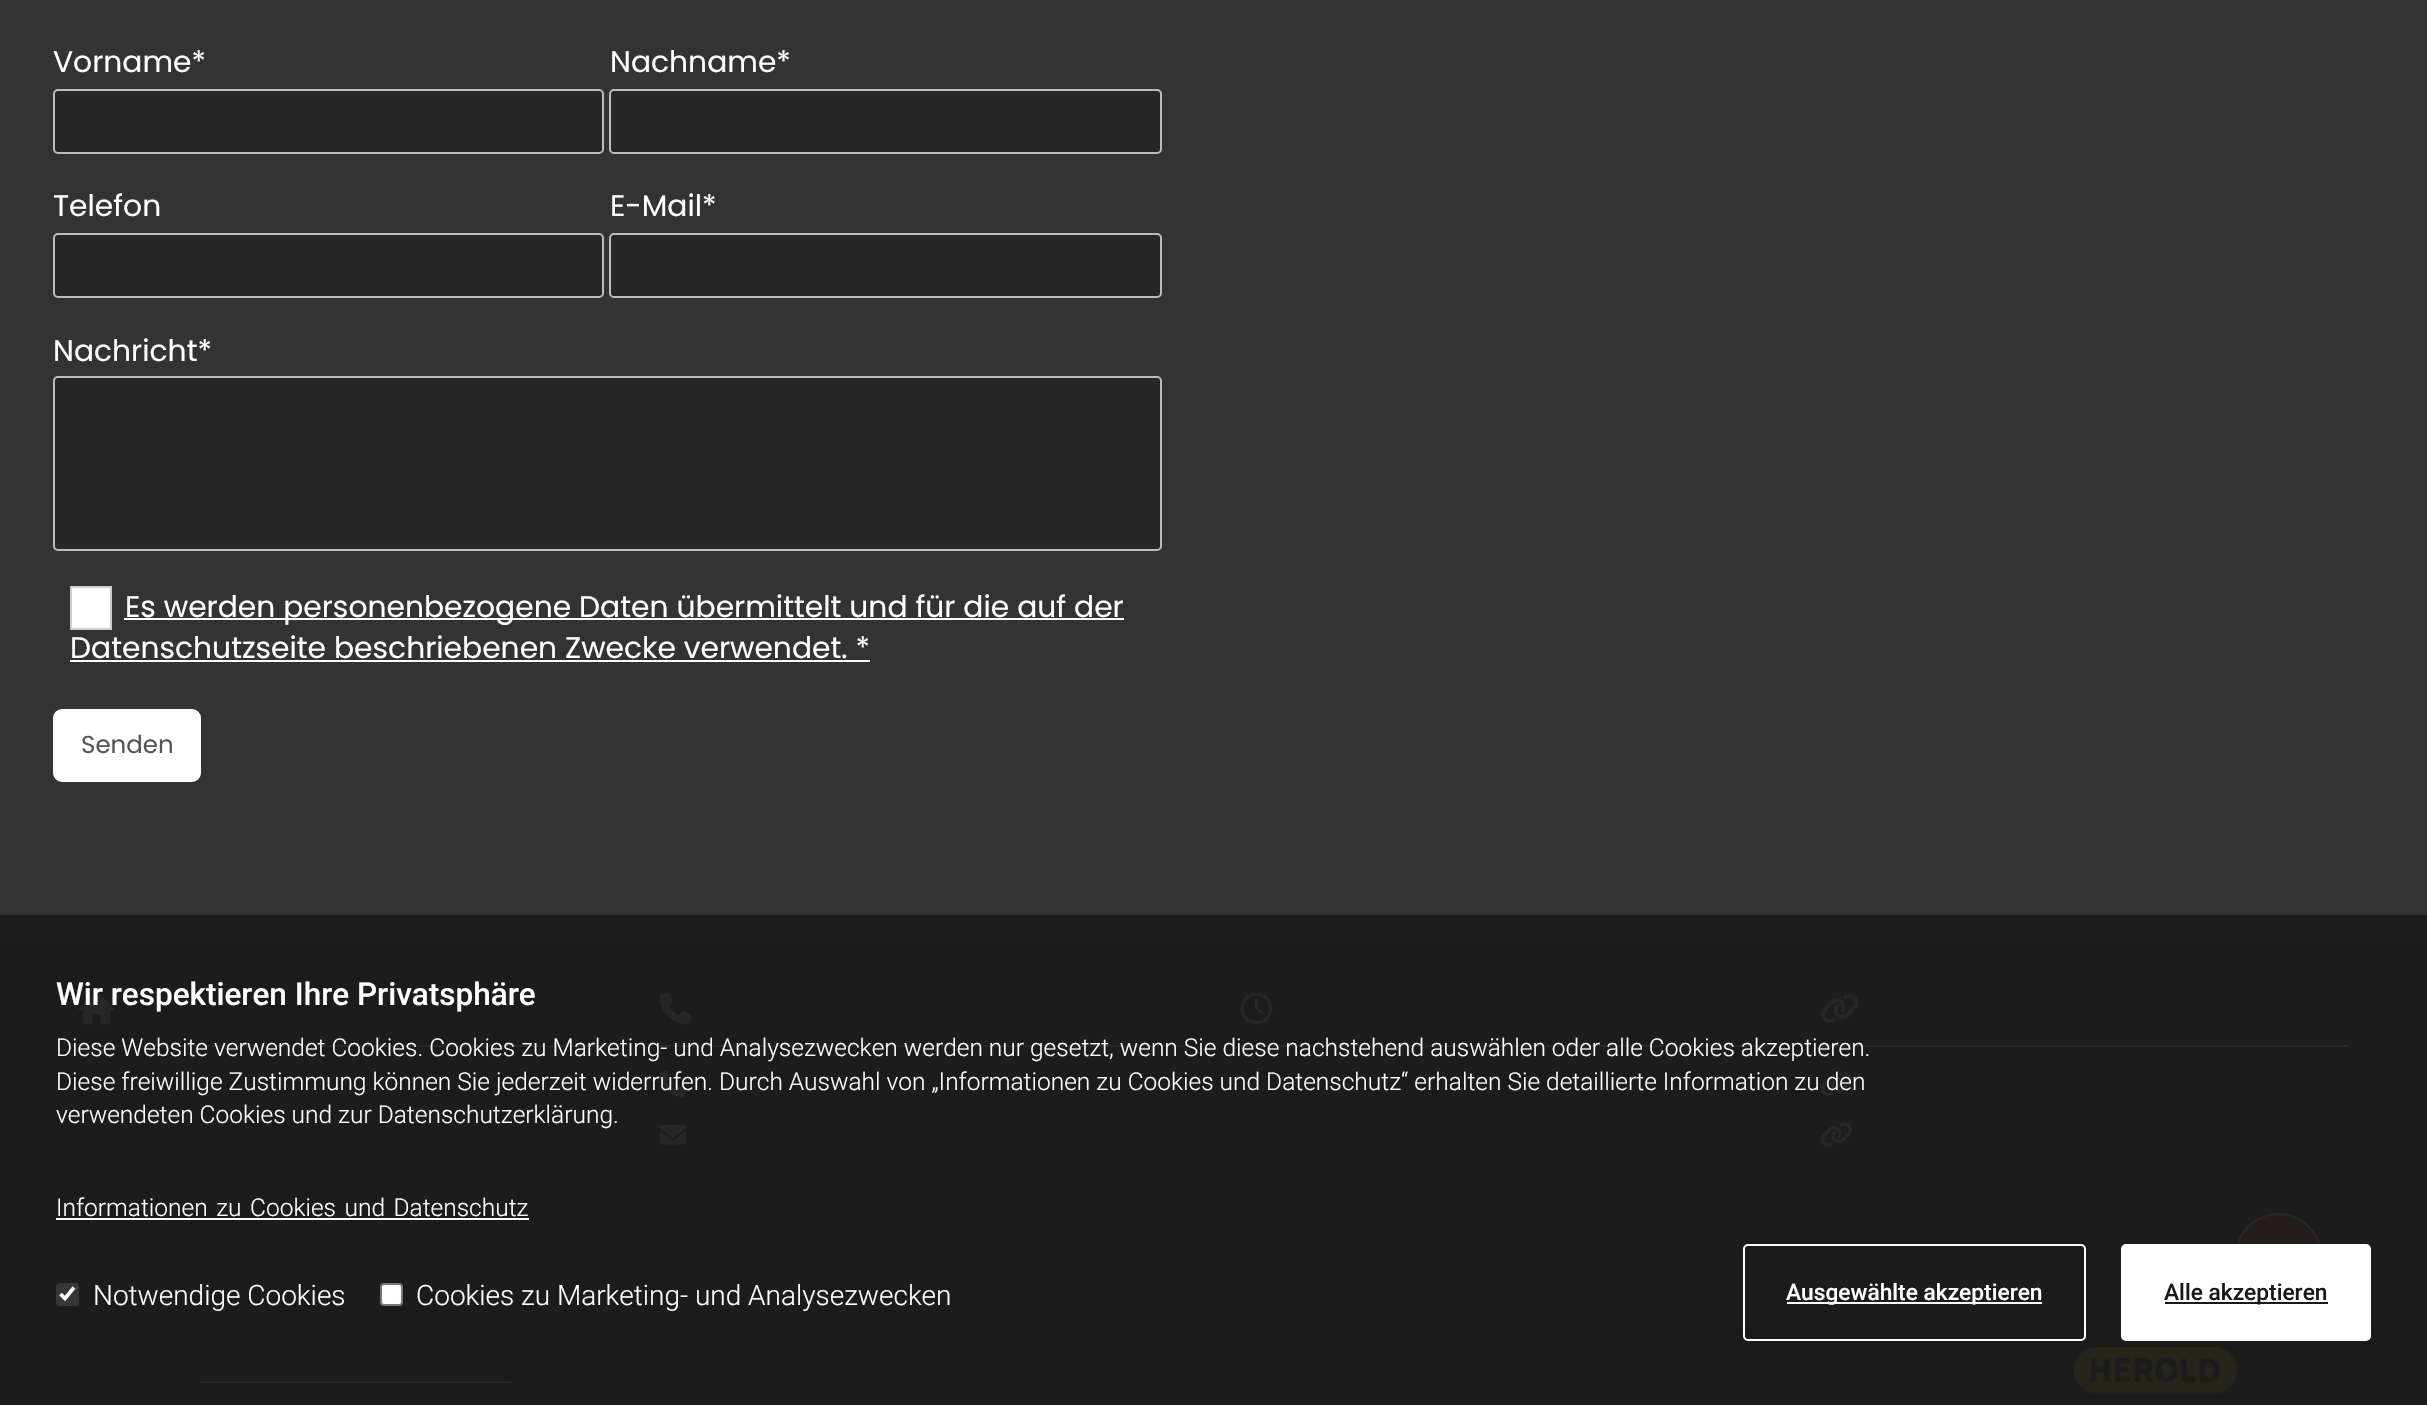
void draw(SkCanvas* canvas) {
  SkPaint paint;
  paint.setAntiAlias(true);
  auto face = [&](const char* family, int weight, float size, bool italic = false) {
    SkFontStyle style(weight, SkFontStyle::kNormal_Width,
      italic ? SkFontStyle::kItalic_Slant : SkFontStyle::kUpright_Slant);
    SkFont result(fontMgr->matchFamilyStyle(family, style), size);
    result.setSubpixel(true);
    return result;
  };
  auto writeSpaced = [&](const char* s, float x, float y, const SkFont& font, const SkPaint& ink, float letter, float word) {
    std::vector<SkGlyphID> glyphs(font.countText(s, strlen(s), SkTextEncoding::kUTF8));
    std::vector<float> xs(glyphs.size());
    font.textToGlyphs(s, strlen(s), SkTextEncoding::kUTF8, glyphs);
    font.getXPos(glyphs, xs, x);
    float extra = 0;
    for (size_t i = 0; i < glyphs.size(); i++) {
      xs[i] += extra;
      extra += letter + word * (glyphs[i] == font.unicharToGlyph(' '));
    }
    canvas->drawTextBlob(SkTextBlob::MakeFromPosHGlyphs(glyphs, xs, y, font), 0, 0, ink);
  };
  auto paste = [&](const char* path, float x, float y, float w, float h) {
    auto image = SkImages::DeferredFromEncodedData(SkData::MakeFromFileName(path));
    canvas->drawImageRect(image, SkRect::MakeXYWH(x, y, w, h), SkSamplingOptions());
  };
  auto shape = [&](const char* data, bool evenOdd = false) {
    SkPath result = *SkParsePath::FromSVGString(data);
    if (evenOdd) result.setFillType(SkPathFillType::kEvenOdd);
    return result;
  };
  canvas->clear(0xff333333);
  paint.setColor(0xff262626);
  canvas->drawRoundRect(SkRect::MakeXYWH(54, 90, 549, 63), 4, 4, paint);
  paint.setStroke(true);
  paint.setStrokeWidth(2);
  paint.setColor(0xffbcbcbc);
  canvas->drawRoundRect(SkRect::MakeXYWH(54, 90, 549, 63), 4, 4, paint);
  paint.setStroke(false);
  paint.setColor(0xff262626);
  canvas->drawRoundRect(SkRect::MakeXYWH(610, 90, 551, 63), 4, 4, paint);
  paint.setStroke(true);
  paint.setColor(0xffbcbcbc);
  canvas->drawRoundRect(SkRect::MakeXYWH(610, 90, 551, 63), 4, 4, paint);
  paint.setStroke(false);
  paint.setColor(0xff262626);
  canvas->drawRoundRect(SkRect::MakeXYWH(54, 234, 549, 63), 4, 4, paint);
  paint.setStroke(true);
  paint.setColor(0xffbcbcbc);
  canvas->drawRoundRect(SkRect::MakeXYWH(54, 234, 549, 63), 4, 4, paint);
  paint.setStroke(false);
  paint.setColor(0xff262626);
  canvas->drawRoundRect(SkRect::MakeXYWH(610, 234, 551, 63), 4, 4, paint);
  paint.setStroke(true);
  paint.setColor(0xffbcbcbc);
  canvas->drawRoundRect(SkRect::MakeXYWH(610, 234, 551, 63), 4, 4, paint);
  paint.setStroke(false);
  paint.setColor(0xff262626);
  canvas->drawRoundRect(SkRect::MakeXYWH(54, 377, 1107, 173), 4, 4, paint);
  paint.setStroke(true);
  paint.setColor(0xffbcbcbc);
  canvas->drawRoundRect(SkRect::MakeXYWH(54, 377, 1107, 173), 4, 4, paint);
  paint.setStroke(false);
  paint.setColor(0xffffffff);
  canvas->drawRect(SkRect::MakeXYWH(71, 587, 40, 42), paint);
  paint.setStroke(true);
  paint.setColor(0xffcccccc);
  canvas->drawRect(SkRect::MakeXYWH(71, 587, 40, 42), paint);
  paint.setStroke(false);
  paint.setColor(0xffffffff);
  canvas->drawRect(SkRect::MakeXYWH(124, 618, 1000, 2), paint);
  canvas->drawRect(SkRect::MakeXYWH(70, 660, 800, 2), paint);
  canvas->drawRoundRect(SkRect::MakeXYWH(54, 710, 146, 71), 8, 8, paint);
  paint.setStroke(true);
  canvas->drawRoundRect(SkRect::MakeXYWH(54, 710, 146, 71), 8, 8, paint);
  paint.setStroke(false);
  paint.setColor(0xff222222);
  canvas->drawRect(SkRect::MakeXYWH(0, 938, 2427, 390), paint);
  paste("img/1.png", 78, 992, 37, 33);
  paint.setColor(0xffffffff);
  canvas->drawRect(SkRect::MakeXYWH(79, 1045, 528, 2), paint);
  paste("img/2.png", 659, 992, 33, 33);
  canvas->drawRect(SkRect::MakeXYWH(660, 1045, 528, 2), paint);
  paste("img/3.png", 659, 1070, 27, 27);
  paste("img/4.png", 659, 1124, 27, 21);
  paste("img/5.png", 1240, 992, 33, 33);
  canvas->drawRect(SkRect::MakeXYWH(1241, 1045, 527, 2), paint);
  paste("img/6.png", 1821, 994, 38, 29);
  canvas->drawRect(SkRect::MakeXYWH(1820, 1045, 529, 2), paint);
  paste("img/7.png", 1820, 1071, 32, 25);
  paste("img/8.png", 1820, 1122, 32, 25);
  paint.setColor(0xff111111);
  canvas->drawRect(SkRect::MakeXYWH(0, 1328, 2427, 77), paint);
  paint.setColor(0xffffffff);
  canvas->drawRect(SkRect::MakeXYWH(200, 1381, 311, 2), paint);
  paste("img/9.png", 2073, 1347, 166, 48);
  paint.setColor(0xffd82323);
  canvas->drawCircle(2278.5f, 1256.5f, 42.5f, paint);
  paint.setStroke(true);
  paint.setColor(0xffffffff);
  canvas->drawCircle(2278.5f, 1256.5f, 42.5f, paint);
  paint.setStroke(false);
  paint.setColor(0xf21b1b1b);
  canvas->drawRect(SkRect::MakeXYWH(0, 915, 2427, 490), paint);
  paint.setColor(0xffffffff);
  canvas->drawRect(SkRect::MakeXYWH(56, 1218, 473, 2), paint);
  paint.setColor(0xff373737);
  canvas->drawRoundRect(SkRect::MakeXYWH(56, 1283, 23, 23), 4, 4, paint);
  paint.setStroke(true);
  paint.setStrokeWidth(3.6f);
  paint.setColor(0xffffffff);
  canvas->drawPath(shape("M60.5 1294L65 1298.5L74 1287.5"), paint);
  paint.setStroke(false);
  canvas->drawRoundRect(SkRect::MakeXYWH(381, 1284, 21, 21), 3, 3, paint);
  paint.setStroke(true);
  paint.setStrokeWidth(2);
  paint.setColor(0xff767676);
  canvas->drawRoundRect(SkRect::MakeXYWH(381, 1284, 21, 21), 3, 3, paint);
  paint.setColor(0xffffffff);
  canvas->drawRoundRect(SkRect::MakeXYWH(1744, 1245, 341, 95), 4, 4, paint);
  paint.setStroke(false);
  canvas->drawRect(SkRect::MakeXYWH(1787, 1302, 255, 2), paint);
  canvas->drawRoundRect(SkRect::MakeXYWH(2122, 1245, 248, 95), 4, 4, paint);
  paint.setStroke(true);
  canvas->drawRoundRect(SkRect::MakeXYWH(2122, 1245, 248, 95), 4, 4, paint);
  paint.setStroke(false);
  paint.setColor(0xff181818);
  canvas->drawRect(SkRect::MakeXYWH(2165, 1302, 163, 2), paint);
  auto f0 = face("Poppins", 400, 29.75f);
  paint.setColor(0xffffffff);
  {
    const struct { const char* s; float x, y; } items[] = {
      {"Vorname*", 53, 72},
      {"Nachname*", 610, 72},
      {"Telefon", 53, 216},
      {"E-Mail*", 610, 216},
      {"Nachricht*", 53, 361},
      {"Es werden personenbezogene Daten übermittelt und für die auf der", 125, 617},
      {"Datenschutzseite beschriebenen Zwecke verwendet. *", 70, 658},
    };
    for (auto [s, x, y] : items) {
      canvas->drawString(s, x, y, f0, paint);
    }
  }
  auto f1 = face("Poppins", 400, 24.5f);
  paint.setColor(0xff555555);
  canvas->drawString("Senden", 81, 753, f1, paint);
  auto f2 = face("Roboto", 500, 31.5f);
  paint.setColor(0xffffffff);
  canvas->drawString("Wir respektieren Ihre Privatsphäre", 56, 1005, f2, paint);
  auto f3 = face("Roboto", 300, 24.5f);
  {
    const struct { const char* s; float x, y; } items[] = {
      {"Diese Website verwendet Cookies. Cookies zu Marketing- und Analysezwecken werden nur gesetzt, wenn Sie diese nachstehend auswählen oder alle Cookies akzeptieren.", 56, 1056},
      {"Diese freiwillige Zustimmung können Sie jederzeit widerrufen. Durch Auswahl von „Informationen zu Cookies und Datenschutz“ erhalten Sie detaillierte Information zu den", 56, 1090},
      {"verwendeten Cookies und zur Datenschutzerklärung.", 56, 1123},
    };
    for (auto [s, x, y] : items) {
      canvas->drawString(s, x, y, f3, paint);
    }
  }
  writeSpaced("Informationen zu Cookies und Datenschutz", 56, 1216, f3, paint, 0, 2.5f);
  auto f4 = face("Roboto", 300, 28);
  canvas->drawString("Notwendige Cookies", 93, 1305, f4, paint);
  canvas->drawString("Cookies zu Marketing- und Analysezwecken", 416, 1305, f4, paint);
  auto f5 = face("Roboto", 500, 22.75f);
  canvas->drawString("Ausgewählte akzeptieren", 1786, 1300, f5, paint);
  paint.setColor(0xff181818);
  canvas->drawString("Alle akzeptieren", 2164, 1300, f5, paint);
}
